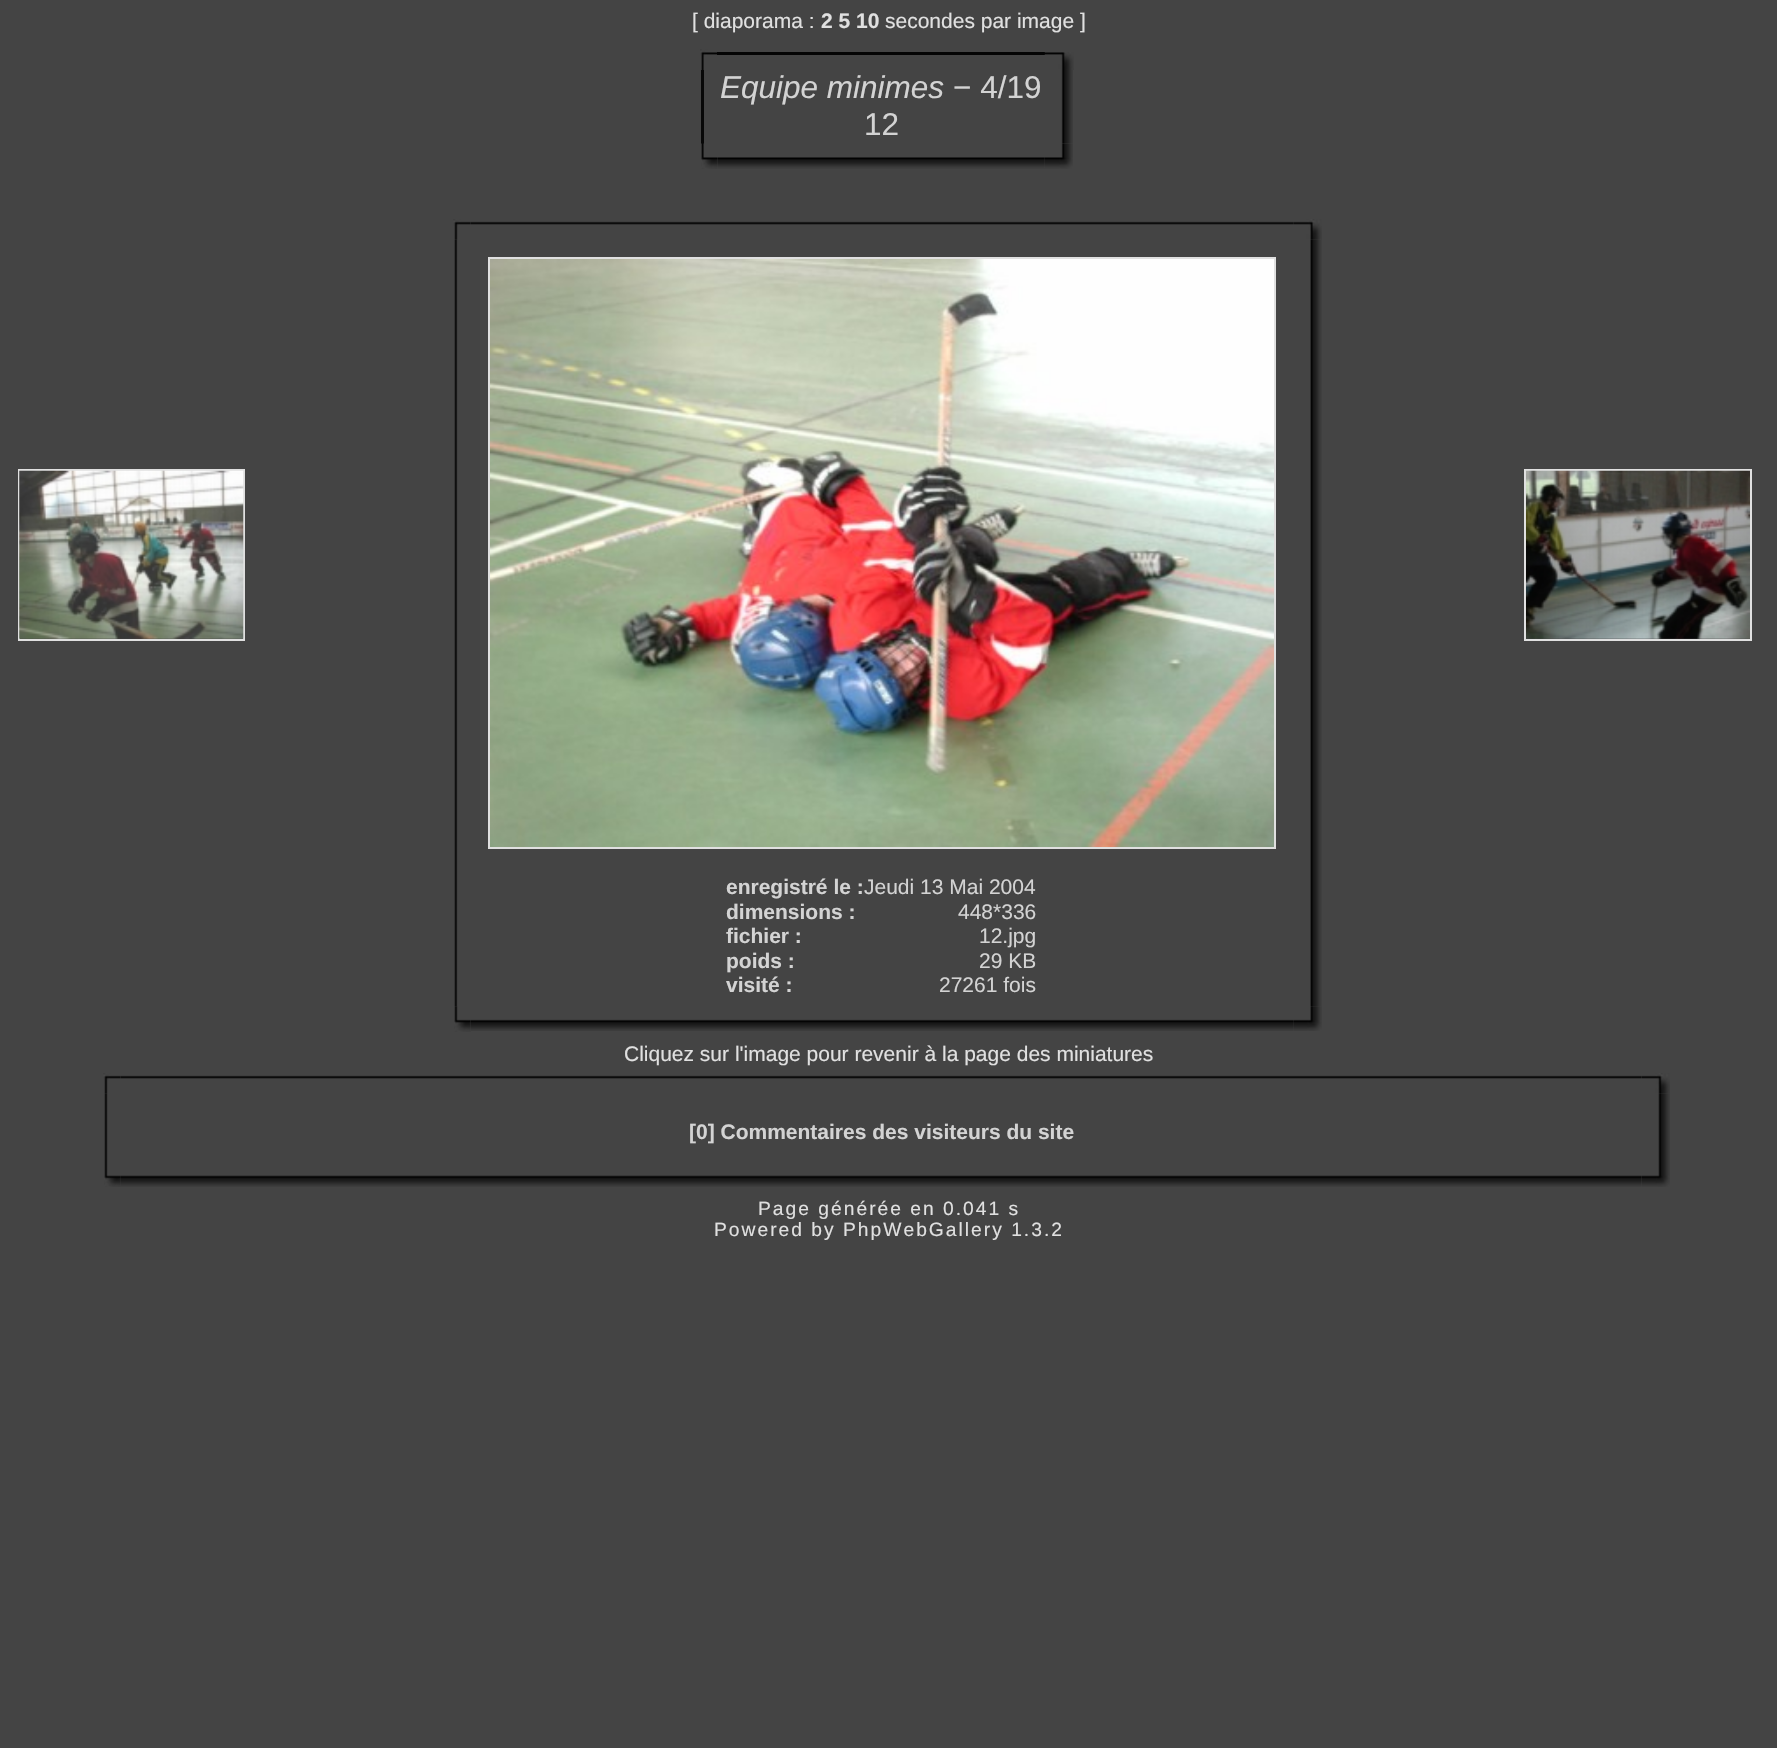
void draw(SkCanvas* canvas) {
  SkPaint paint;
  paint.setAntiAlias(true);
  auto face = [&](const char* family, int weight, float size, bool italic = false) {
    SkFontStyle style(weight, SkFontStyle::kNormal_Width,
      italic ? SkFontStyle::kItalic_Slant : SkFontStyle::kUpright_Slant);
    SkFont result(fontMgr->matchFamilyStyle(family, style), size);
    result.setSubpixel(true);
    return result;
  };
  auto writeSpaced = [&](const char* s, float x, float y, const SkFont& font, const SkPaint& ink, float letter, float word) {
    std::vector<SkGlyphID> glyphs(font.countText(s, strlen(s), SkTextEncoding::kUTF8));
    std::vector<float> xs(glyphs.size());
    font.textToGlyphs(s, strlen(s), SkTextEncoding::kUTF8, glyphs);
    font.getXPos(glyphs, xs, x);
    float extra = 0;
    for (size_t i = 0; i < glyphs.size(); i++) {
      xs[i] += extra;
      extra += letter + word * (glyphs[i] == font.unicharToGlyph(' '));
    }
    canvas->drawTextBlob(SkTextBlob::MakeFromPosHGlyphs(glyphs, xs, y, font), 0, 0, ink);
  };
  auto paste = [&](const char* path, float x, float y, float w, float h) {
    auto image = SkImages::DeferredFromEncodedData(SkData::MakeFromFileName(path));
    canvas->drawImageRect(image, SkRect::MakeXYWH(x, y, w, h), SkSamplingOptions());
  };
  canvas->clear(0xff444444);
  paint.setStroke(true);
  paint.setStrokeWidth(2);
  paint.setColor(0xffe0e0e0);
  canvas->drawRect(SkRect::MakeXYWH(19, 470, 225, 170), paint);
  paste("img/1.png", 19, 470, 225, 169);
  paste("img/2.png", 700, 49, 18, 21);
  paint.setStroke(false);
  paint.setColor(0xff040404);
  canvas->drawRect(SkRect::MakeXYWH(717, 52, 328, 3), paint);
  paste("img/3.png", 1044, 52, 30, 18);
  paint.setColor(0xff080808);
  canvas->drawRect(SkRect::MakeXYWH(701, 70, 3, 74), paint);
  paste("img/4.png", 1061, 70, 12, 74);
  paste("img/5.png", 701, 143, 17, 26);
  paste("img/6.png", 717, 157, 328, 12);
  paste("img/7.png", 1044, 143, 29, 26);
  paste("img/11.png", 454, 239, 4, 768);
  paste("img/8.png", 453, 219, 18, 21);
  paste("img/9.png", 471, 221, 823, 4);
  paste("img/13.png", 1310, 239, 12, 768);
  paste("img/10.png", 1293, 219, 29, 21);
  paint.setStroke(true);
  paint.setColor(0xffe0e0e0);
  canvas->drawRect(SkRect::MakeXYWH(489, 258, 786, 590), paint);
  paste("img/12.png", 490, 259, 784, 588);
  paste("img/14.png", 454, 1006, 17, 26);
  paste("img/15.png", 471, 1019, 823, 12);
  paste("img/16.png", 1293, 1006, 29, 25);
  canvas->drawRect(SkRect::MakeXYWH(1525, 470, 226, 170), paint);
  paste("img/17.png", 1526, 470, 224, 169);
  paste("img/21.png", 104, 1093, 4, 69);
  paste("img/18.png", 103, 1073, 18, 21);
  paste("img/22.png", 1658, 1093, 12, 69);
  paste("img/23.png", 104, 1162, 17, 25);
  paste("img/24.png", 120, 1175, 1522, 12);
  paste("img/25.png", 1641, 1162, 29, 25);
  auto f0 = face("Liberation Sans", 400, 21);
  paint.setStroke(false);
  canvas->drawString("[ diaporama :", 692, 28, f0, paint);
  auto f1 = face("Liberation Sans", 700, 21);
  canvas->drawString("2 5 10", 821, 28, f1, paint);
  canvas->drawString("secondes par image ]", 885, 28, f0, paint);
  auto f2 = face("Liberation Sans", 400, 31.5f, true);
  paint.setColor(0xffd3d3d3);
  canvas->drawString("Equipe minimes", 720, 98, f2, paint);
  auto f3 = face("Liberation Sans", 400, 31.5f);
  canvas->drawString("− 4/19", 953, 98, f3, paint);
  canvas->drawString("12", 864, 135, f3, paint);
  canvas->drawString("enregistré le :", 726, 894, f1, paint);
  canvas->drawString("Jeudi 13 Mai 2004", 864, 894, f0, paint);
  canvas->drawString("dimensions :", 726, 919, f1, paint);
  canvas->drawString("448*336", 958, 919, f0, paint);
  canvas->drawString("fichier :", 726, 943, f1, paint);
  canvas->drawString("12.jpg", 979, 943, f0, paint);
  canvas->drawString("poids :", 726, 968, f1, paint);
  canvas->drawString("29 KB", 979, 968, f0, paint);
  canvas->drawString("visité :", 726, 992, f1, paint);
  canvas->drawString("27261 fois", 939, 992, f0, paint);
  paint.setColor(0xffe0e0e0);
  canvas->drawString("Cliquez sur l'image pour revenir à la page des miniatures", 624, 1061, f0, paint);
  paste("img/19.png", 121, 1065, 1521, 14);
  paste("img/20.png", 1641, 1073, 29, 21);
  paint.setColor(0xffd3d3d3);
  canvas->drawString("[0] Commentaires des visiteurs du site", 689, 1139, f1, paint);
  auto f4 = face("Liberation Sans", 400, 19.25f);
  paint.setColor(0xffe0e0e0);
  writeSpaced("Page générée en 0.041 s", 758, 1215, f4, paint, 2, 0);
  writeSpaced("Powered by PhpWebGallery 1.3.2", 714, 1236, f4, paint, 2, 0);
}
